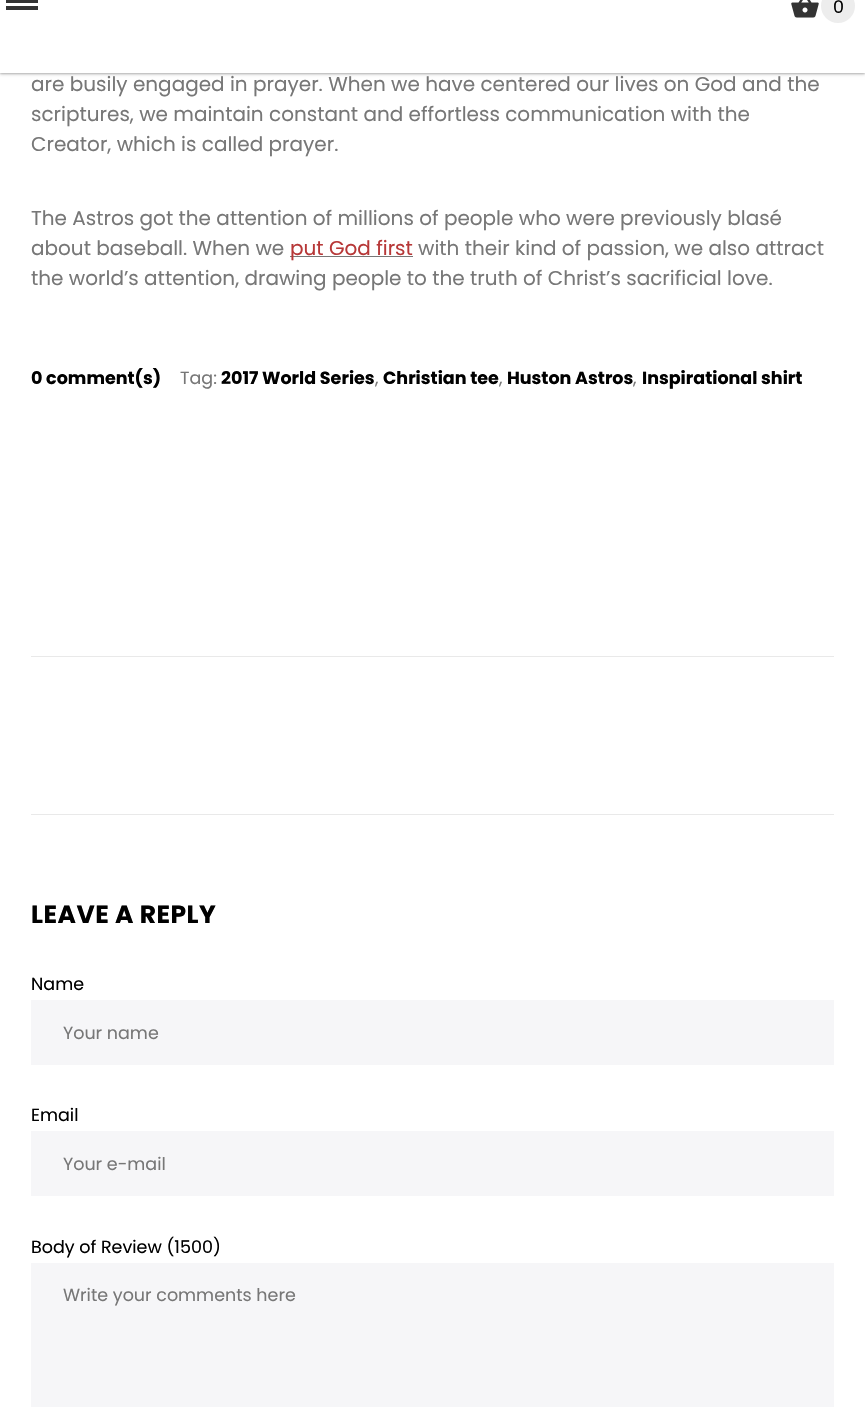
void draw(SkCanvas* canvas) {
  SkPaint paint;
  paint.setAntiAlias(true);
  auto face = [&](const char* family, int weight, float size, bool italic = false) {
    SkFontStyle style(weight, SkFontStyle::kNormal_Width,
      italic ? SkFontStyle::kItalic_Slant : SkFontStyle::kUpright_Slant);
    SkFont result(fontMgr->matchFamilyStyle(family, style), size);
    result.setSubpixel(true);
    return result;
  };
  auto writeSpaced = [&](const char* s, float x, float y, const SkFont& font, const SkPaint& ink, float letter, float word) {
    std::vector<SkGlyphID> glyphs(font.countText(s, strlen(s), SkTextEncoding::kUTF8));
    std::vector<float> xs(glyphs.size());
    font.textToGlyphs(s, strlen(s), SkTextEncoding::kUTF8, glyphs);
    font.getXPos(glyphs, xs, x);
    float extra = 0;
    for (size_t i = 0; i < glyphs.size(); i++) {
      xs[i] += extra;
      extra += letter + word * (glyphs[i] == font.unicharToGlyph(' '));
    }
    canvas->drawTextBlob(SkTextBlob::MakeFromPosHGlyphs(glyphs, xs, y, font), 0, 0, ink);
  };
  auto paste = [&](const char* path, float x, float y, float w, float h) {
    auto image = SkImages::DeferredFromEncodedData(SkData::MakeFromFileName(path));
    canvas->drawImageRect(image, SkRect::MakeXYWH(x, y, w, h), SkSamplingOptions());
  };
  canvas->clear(0xffffffff);
  paint.setColor(0x3d000000);
  paint.setMaskFilter(SkMaskFilter::MakeBlur(kNormal_SkBlurStyle, 1));
  canvas->drawRect(SkRect::MakeXYWH(0, 0, 865, 74), paint);
  paint.setMaskFilter(nullptr);
  paint.setColor(0x1f000000);
  paint.setMaskFilter(SkMaskFilter::MakeBlur(kNormal_SkBlurStyle, 2));
  canvas->drawRect(SkRect::MakeXYWH(0, 0, 865, 74), paint);
  paint.setMaskFilter(nullptr);
  {
    const struct { float x, y, w, h; SkColor color; } items[] = {
      {0, 0, 865, 73, 0xffffffff},
      {6, 0, 32, 3, 0xff333333},
      {6, 6, 32, 4, 0xff333333},
    };
    for (auto [x, y, w, h, color] : items) {
      paint.setColor(color);
      canvas->drawRect(SkRect::MakeXYWH(x, y, w, h), paint);
    }
  }
  paste("img/1.png", 791, 0, 28, 18);
  paint.setColor(0xffededed);
  canvas->drawCircle(838, 6, 17, paint);
  {
    const struct { float x, y, w, h; SkColor color; } items[] = {
      {290, 256, 123, 1, 0xff777777},
      {31, 656, 803, 1, 0xffe9e9e9},
      {31, 814, 803, 1, 0xffe9e9e9},
      {31, 1000, 803, 65, 0xfff6f6f8},
      {31, 1131, 803, 65, 0xfff6f6f8},
      {31, 1263, 803, 144, 0xfff6f6f8},
    };
    for (auto [x, y, w, h, color] : items) {
      paint.setColor(color);
      canvas->drawRect(SkRect::MakeXYWH(x, y, w, h), paint);
    }
  }
  auto f0 = face("Poppins", 400, 17.5f);
  paint.setColor(0xff000000);
  canvas->drawString("0", 833, 13, f0, paint);
  auto f1 = face("Poppins", 400, 20);
  paint.setColor(0xff777777);
  {
    const struct { const char* s; float x, y; } items[] = {
      {"are busily engaged in prayer. When we have centered our lives on God and the", 31, 91},
      {"scriptures, we maintain constant and effortless communication with the", 31, 121},
      {"Creator, which is called prayer.", 31, 151},
      {"The Astros got the attention of millions of people who were previously blasé", 31, 225},
      {"about baseball. When we", 31, 255},
    };
    for (auto [s, x, y] : items) {
      canvas->drawString(s, x, y, f1, paint);
    }
  }
  paint.setColor(0xffb73838);
  canvas->drawString("put God first", 290, 255, f1, paint);
  paint.setColor(0xff777777);
  canvas->drawString("with their kind of passion, we also attract", 418, 255, f1, paint);
  canvas->drawString("the world’s attention, drawing people to the truth of Christ’s sacrificial love.", 31, 285, f1, paint);
  auto f2 = face("Poppins", 700, 17.5f);
  paint.setColor(0xff000000);
  canvas->drawString("0 comment(s)", 31, 384, f2, paint);
  paint.setColor(0xff777777);
  canvas->drawString("Tag:", 180, 384, f0, paint);
  paint.setColor(0xff000000);
  canvas->drawString("2017 World Series", 221, 384, f2, paint);
  paint.setColor(0xff777777);
  canvas->drawString(",", 375, 384, f0, paint);
  paint.setColor(0xff000000);
  canvas->drawString("Christian tee", 383, 384, f2, paint);
  paint.setColor(0xff777777);
  canvas->drawString(",", 499, 384, f0, paint);
  paint.setColor(0xff000000);
  canvas->drawString("Huston Astros", 507, 384, f2, paint);
  paint.setColor(0xff777777);
  canvas->drawString(",", 633, 384, f0, paint);
  paint.setColor(0xff000000);
  canvas->drawString("Inspirational shirt", 642, 384, f2, paint);
  auto f3 = face("Poppins", 700, 25);
  writeSpaced("LEAVE A REPLY", 31, 923, f3, paint, 0.5f, 0);
  canvas->drawString("Name", 31, 990, f0, paint);
  paint.setColor(0xff777777);
  canvas->drawString("Your name", 63, 1039, f0, paint);
  paint.setColor(0xff000000);
  canvas->drawString("Email", 31, 1121, f0, paint);
  paint.setColor(0xff777777);
  canvas->drawString("Your e-mail", 63, 1170, f0, paint);
  paint.setColor(0xff000000);
  canvas->drawString("Body of Review (1500)", 31, 1253, f0, paint);
  paint.setColor(0xff777777);
  canvas->drawString("Write your comments here", 63, 1301, f0, paint);
}
